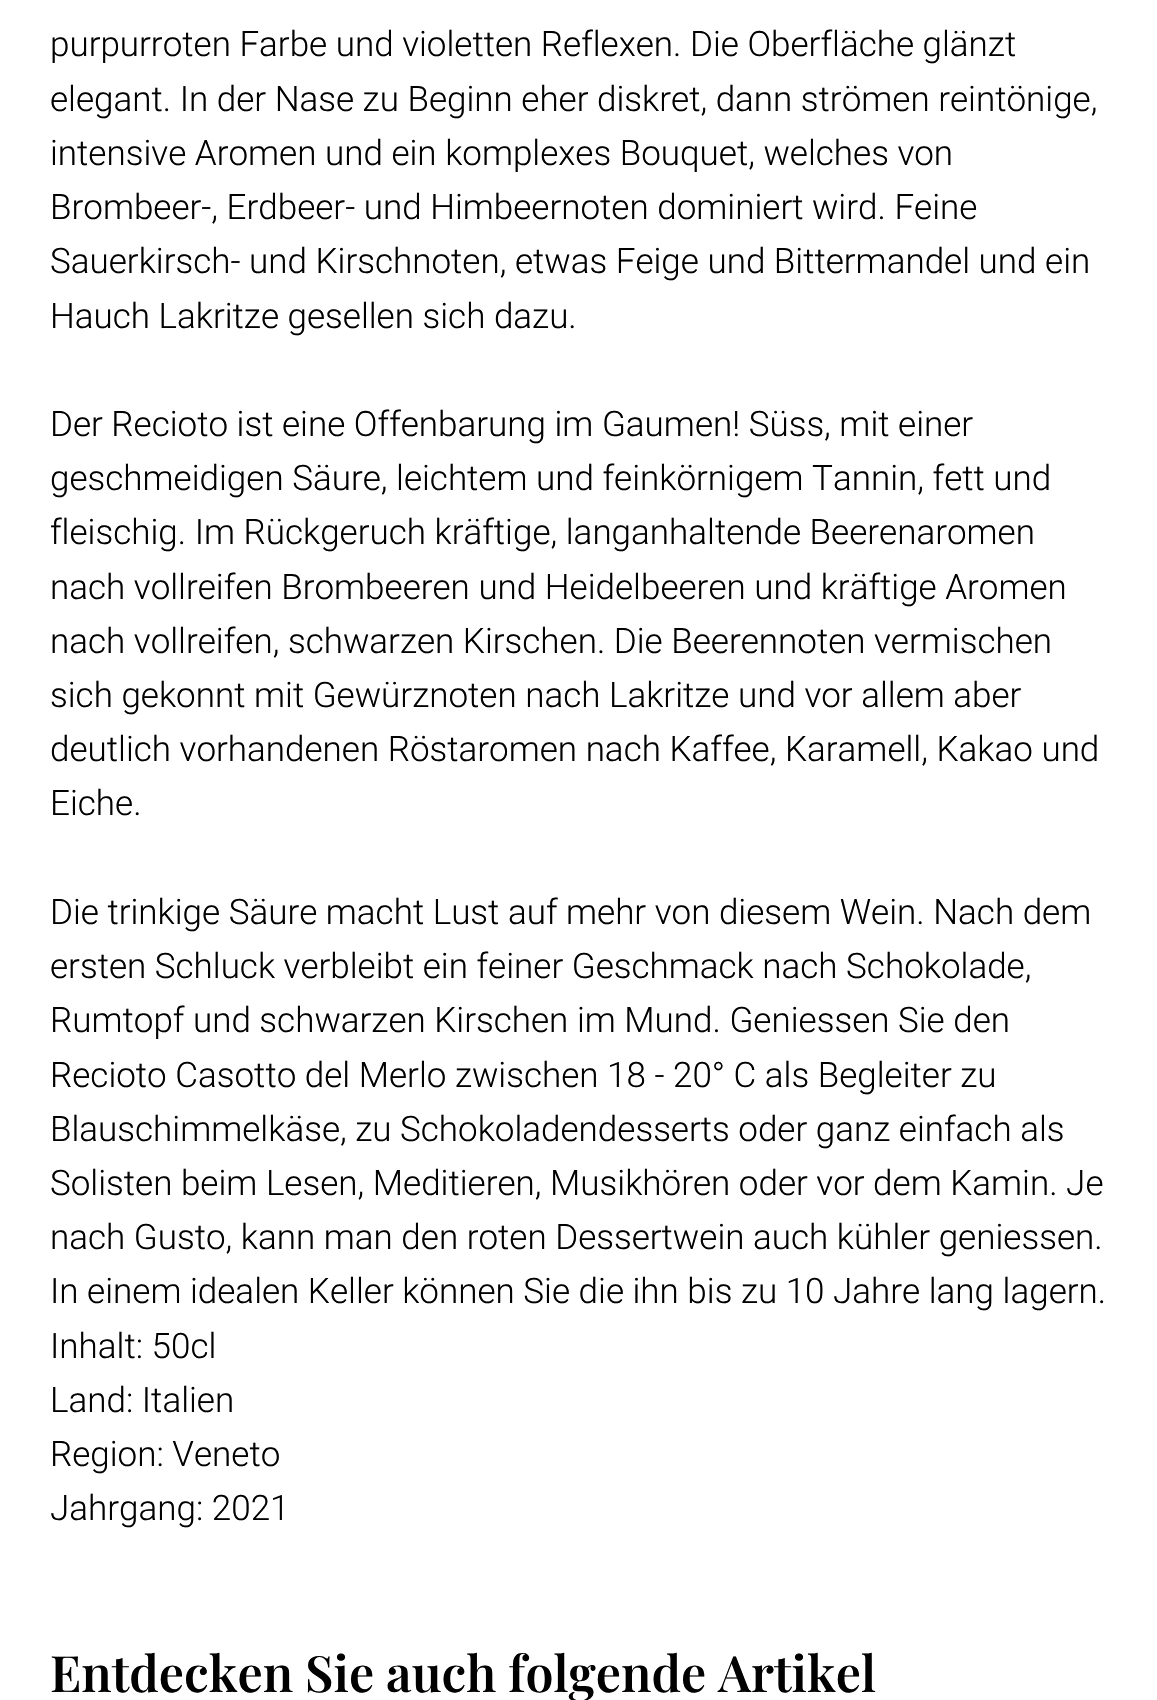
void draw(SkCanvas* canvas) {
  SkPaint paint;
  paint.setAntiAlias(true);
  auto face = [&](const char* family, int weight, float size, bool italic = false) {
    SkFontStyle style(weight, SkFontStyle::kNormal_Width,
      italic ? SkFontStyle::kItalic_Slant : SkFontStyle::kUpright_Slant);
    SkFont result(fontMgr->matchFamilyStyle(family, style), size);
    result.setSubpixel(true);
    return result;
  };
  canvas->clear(0xffffffff);
  auto f0 = face("Roboto", 300, 35);
  paint.setColor(0xff000000);
  {
    const struct { const char* s; float x, y; } items[] = {
      {"purpurroten Farbe und violetten Reflexen. Die Oberfläche glänzt", 50, 56},
      {"elegant. In der Nase zu Beginn eher diskret, dann strömen reintönige,", 50, 111},
      {"intensive Aromen und ein komplexes Bouquet, welches von", 50, 165},
      {"Brombeer-, Erdbeer- und Himbeernoten dominiert wird. Feine", 50, 219},
      {"Sauerkirsch- und Kirschnoten, etwas Feige und Bittermandel und ein", 50, 273},
      {"Hauch Lakritze gesellen sich dazu.", 50, 328},
      {"Der Recioto ist eine Offenbarung im Gaumen! Süss, mit einer", 50, 436},
      {"geschmeidigen Säure, leichtem und feinkörnigem Tannin, fett und", 50, 490},
      {"fleischig. Im Rückgeruch kräftige, langanhaltende Beerenaromen", 50, 544},
      {"nach vollreifen Brombeeren und Heidelbeeren und kräftige Aromen", 50, 599},
      {"nach vollreifen, schwarzen Kirschen. Die Beerennoten vermischen", 50, 653},
      {"sich gekonnt mit Gewürznoten nach Lakritze und vor allem aber", 50, 707},
      {"deutlich vorhandenen Röstaromen nach Kaffee, Karamell, Kakao und", 50, 761},
      {"Eiche.", 50, 815},
      {"Die trinkige Säure macht Lust auf mehr von diesem Wein. Nach dem", 50, 924},
      {"ersten Schluck verbleibt ein feiner Geschmack nach Schokolade,", 50, 978},
      {"Rumtopf und schwarzen Kirschen im Mund. Geniessen Sie den", 50, 1032},
      {"Recioto Casotto del Merlo zwischen 18 - 20° C als Begleiter zu", 50, 1087},
      {"Blauschimmelkäse, zu Schokoladendesserts oder ganz einfach als", 50, 1141},
      {"Solisten beim Lesen, Meditieren, Musikhören oder vor dem Kamin. Je", 50, 1195},
      {"nach Gusto, kann man den roten Dessertwein auch kühler geniessen.", 50, 1249},
      {"In einem idealen Keller können Sie die ihn bis zu 10 Jahre lang lagern.", 50, 1303},
      {"Inhalt: 50cl", 50, 1358},
      {"Land: Italien", 50, 1412},
      {"Region: Veneto", 50, 1466},
      {"Jahrgang: 2021", 50, 1520},
    };
    for (auto [s, x, y] : items) {
      canvas->drawString(s, x, y, f0, paint);
    }
  }
  auto f1 = face("Playfair Display", 600, 50);
  canvas->drawString("Entdecken Sie auch folgende Artikel", 50, 1692, f1, paint);
}
